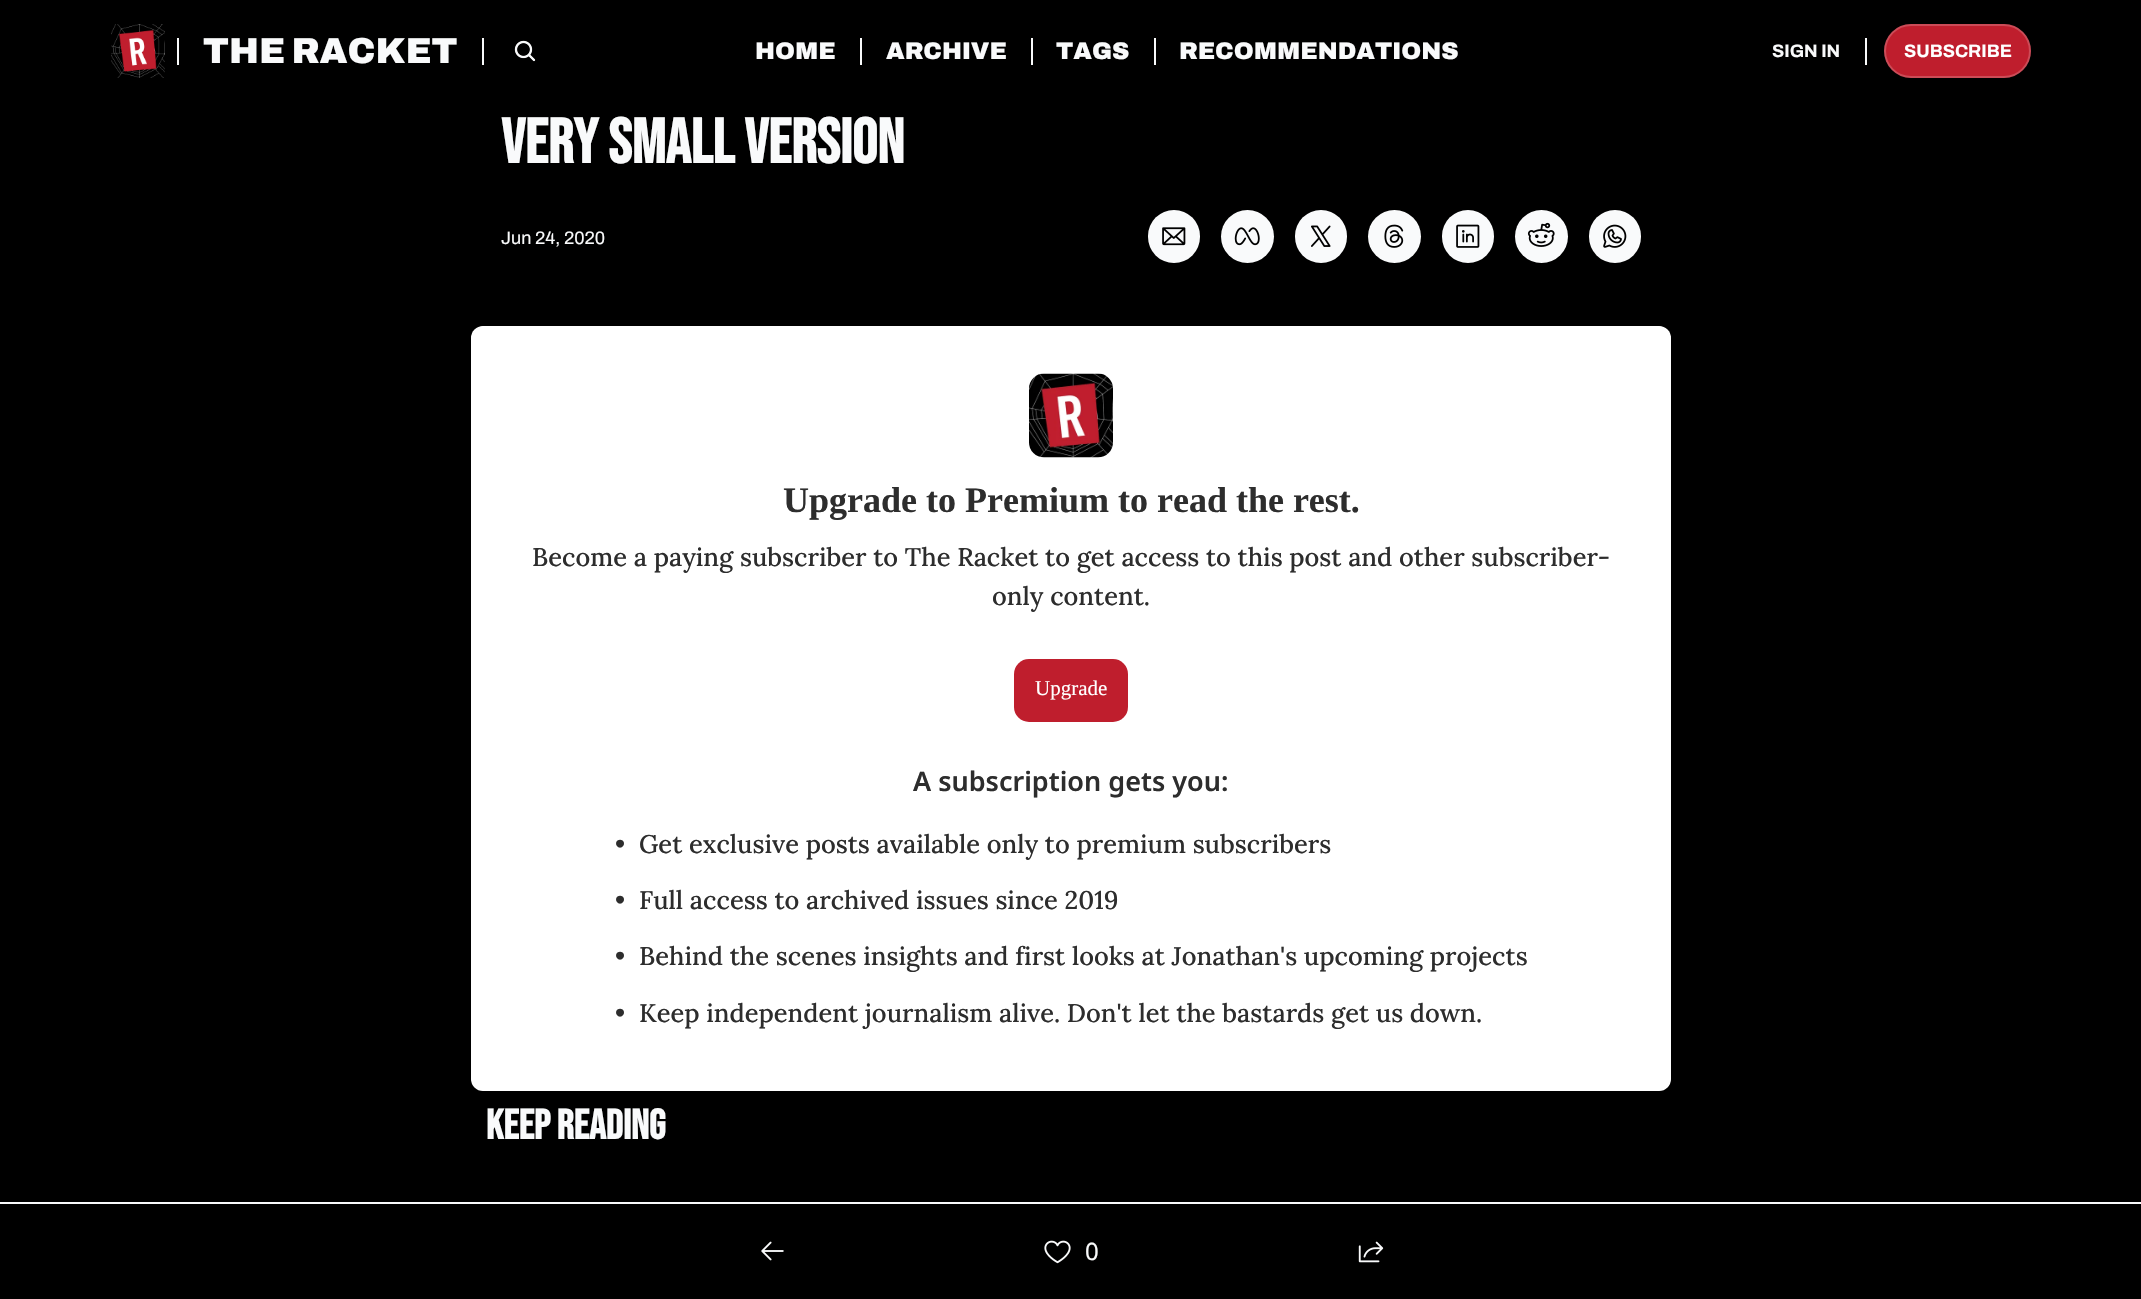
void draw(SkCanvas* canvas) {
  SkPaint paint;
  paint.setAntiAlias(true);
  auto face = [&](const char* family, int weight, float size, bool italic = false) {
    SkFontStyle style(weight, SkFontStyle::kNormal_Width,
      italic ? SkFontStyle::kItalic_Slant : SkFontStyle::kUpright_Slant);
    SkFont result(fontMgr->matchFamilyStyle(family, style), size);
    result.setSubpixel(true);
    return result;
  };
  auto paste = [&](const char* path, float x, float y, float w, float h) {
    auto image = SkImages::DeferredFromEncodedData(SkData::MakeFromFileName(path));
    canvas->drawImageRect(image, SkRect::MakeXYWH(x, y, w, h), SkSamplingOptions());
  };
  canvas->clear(0xff000000);
  paste("img/1.png", 111, 24, 54, 54);
  paint.setColor(0xfff9fafb);
  canvas->drawRect(SkRect::MakeXYWH(177, 38, 2, 27), paint);
  canvas->drawRect(SkRect::MakeXYWH(482, 38, 2, 27), paint);
  paste("img/2.png", 514, 40, 22, 22);
  {
    const struct { float x, y, w, h; SkColor color; } items[] = {
      {860, 38, 2, 27, 0xfff9fafb},
      {1031, 38, 2, 27, 0xfff9fafb},
      {1154, 38, 2, 27, 0xfff9fafb},
      {1865, 38, 2, 27, 0xfff9fafb},
    };
    for (auto [x, y, w, h, color] : items) {
      paint.setColor(color);
      canvas->drawRect(SkRect::MakeXYWH(x, y, w, h), paint);
    }
  }
  paint.setColor(0xffbf1e2d);
  canvas->drawRoundRect(SkRect::MakeXYWH(1884, 24, 147, 54), 27, 27, paint);
  paint.setStroke(true);
  paint.setStrokeWidth(2);
  paint.setColor(0x33ffffff);
  canvas->drawRoundRect(SkRect::MakeXYWH(1885, 25, 145, 52), 26, 26, paint);
  paint.setStroke(false);
  paint.setColor(0xfff9fafb);
  canvas->drawRoundRect(SkRect::MakeXYWH(1148, 210, 52, 53), 26, 26, paint);
  paste("img/3.png", 1162, 227, 24, 19);
  canvas->drawCircle(1247.5f, 236.5f, 26.5f, paint);
  paste("img/4.png", 1234, 227, 26, 19);
  canvas->drawRoundRect(SkRect::MakeXYWH(1295, 210, 52, 53), 26, 26, paint);
  paste("img/5.png", 1311, 225, 20, 22);
  canvas->drawCircle(1394.5f, 236.5f, 26.5f, paint);
  paste("img/6.png", 1384, 224, 20, 24);
  canvas->drawRoundRect(SkRect::MakeXYWH(1442, 210, 52, 53), 26, 26, paint);
  paste("img/7.png", 1456, 224, 24, 24);
  canvas->drawCircle(1541.5f, 236.5f, 26.5f, paint);
  paste("img/8.png", 1527, 222, 28, 25);
  canvas->drawRoundRect(SkRect::MakeXYWH(1589, 210, 52, 53), 26, 26, paint);
  paste("img/9.png", 1603, 224, 24, 24);
  paint.setColor(0xffffffff);
  canvas->drawRoundRect(SkRect::MakeXYWH(471, 326, 1200, 765), 12, 12, paint);
  canvas->drawRoundRect(SkRect::MakeXYWH(471, 326, 1200, 765), 15, 15, paint);
  paste("img/10.png", 1029, 373, 84, 85);
  paint.setColor(0xffbf1e2d);
  canvas->drawRoundRect(SkRect::MakeXYWH(1014, 659, 114, 63), 15, 15, paint);
  paint.setColor(0xfff9fafb);
  canvas->drawRect(SkRect::MakeXYWH(0, 1202, 2141, 2), paint);
  paste("img/11.png", 761, 1241, 23, 20);
  paste("img/12.png", 1044, 1240, 27, 24);
  paste("img/13.png", 1358, 1241, 26, 22);
  auto f0 = face("Archivo", 900, 36);
  canvas->drawString("THE RACKET", 203, 63, f0, paint);
  auto f1 = face("Archivo", 900, 24);
  {
    const struct { const char* s; float x, y; } items[] = {
      {"HOME", 755, 59},
      {"ARCHIVE", 886, 59},
      {"TAGS", 1056, 59},
      {"RECOMMENDATIONS", 1179, 59},
    };
    for (auto [s, x, y] : items) {
      canvas->drawString(s, x, y, f1, paint);
    }
  }
  auto f2 = face("Archivo", 700, 18);
  canvas->drawString("SIGN IN", 1772, 57, f2, paint);
  paint.setColor(0xffffffff);
  canvas->drawString("SUBSCRIBE", 1904, 57, f2, paint);
  auto f3 = face("Bebas Neue", 700, 63);
  paint.setColor(0xfff9fafb);
  canvas->drawString("VERY SMALL VERSION", 501, 163, f3, paint);
  auto f4 = face("Archivo", 400, 18);
  canvas->drawString("Jun 24, 2020", 501, 244, f4, paint);
  auto f5 = face("Liberation Serif", 700, 36);
  paint.setColor(0xff2d2d2d);
  canvas->drawString("Upgrade to Premium to read the rest.", 783, 512, f5, paint);
  auto f6 = face("Lora", 500, 25.5f);
  canvas->drawString("Become a paying subscriber to The Racket to get access to this post and other subscriber-", 532, 566, f6, paint);
  canvas->drawString("only content.", 992, 605, f6, paint);
  auto f7 = face("Liberation Serif", 400, 21);
  paint.setColor(0xffffffff);
  canvas->drawString("Upgrade", 1035, 695, f7, paint);
  auto f8 = face("Noto Sans", 600, 27);
  paint.setColor(0xff2d2d2d);
  canvas->drawString("A subscription gets you:", 913, 791, f8, paint);
  {
    const struct { const char* s; float x, y; } items[] = {
      {"•", 615, 853},
      {"Get exclusive posts available only to premium subscribers", 639, 853},
      {"•", 615, 909},
      {"Full access to archived issues since 2019", 639, 909},
      {"•", 615, 965},
      {"Behind the scenes insights and first looks at Jonathan's upcoming projects", 639, 965},
      {"•", 615, 1022},
      {"Keep independent journalism alive. Don't let the bastards get us down.", 639, 1022},
    };
    for (auto [s, x, y] : items) {
      canvas->drawString(s, x, y, f6, paint);
    }
  }
  auto f9 = face("Bebas Neue", 700, 42);
  paint.setColor(0xfff9fafb);
  canvas->drawString("KEEP READING", 486, 1139, f9, paint);
  auto f10 = face("Noto Sans", 400, 24);
  canvas->drawString("0", 1085, 1260, f10, paint);
}
